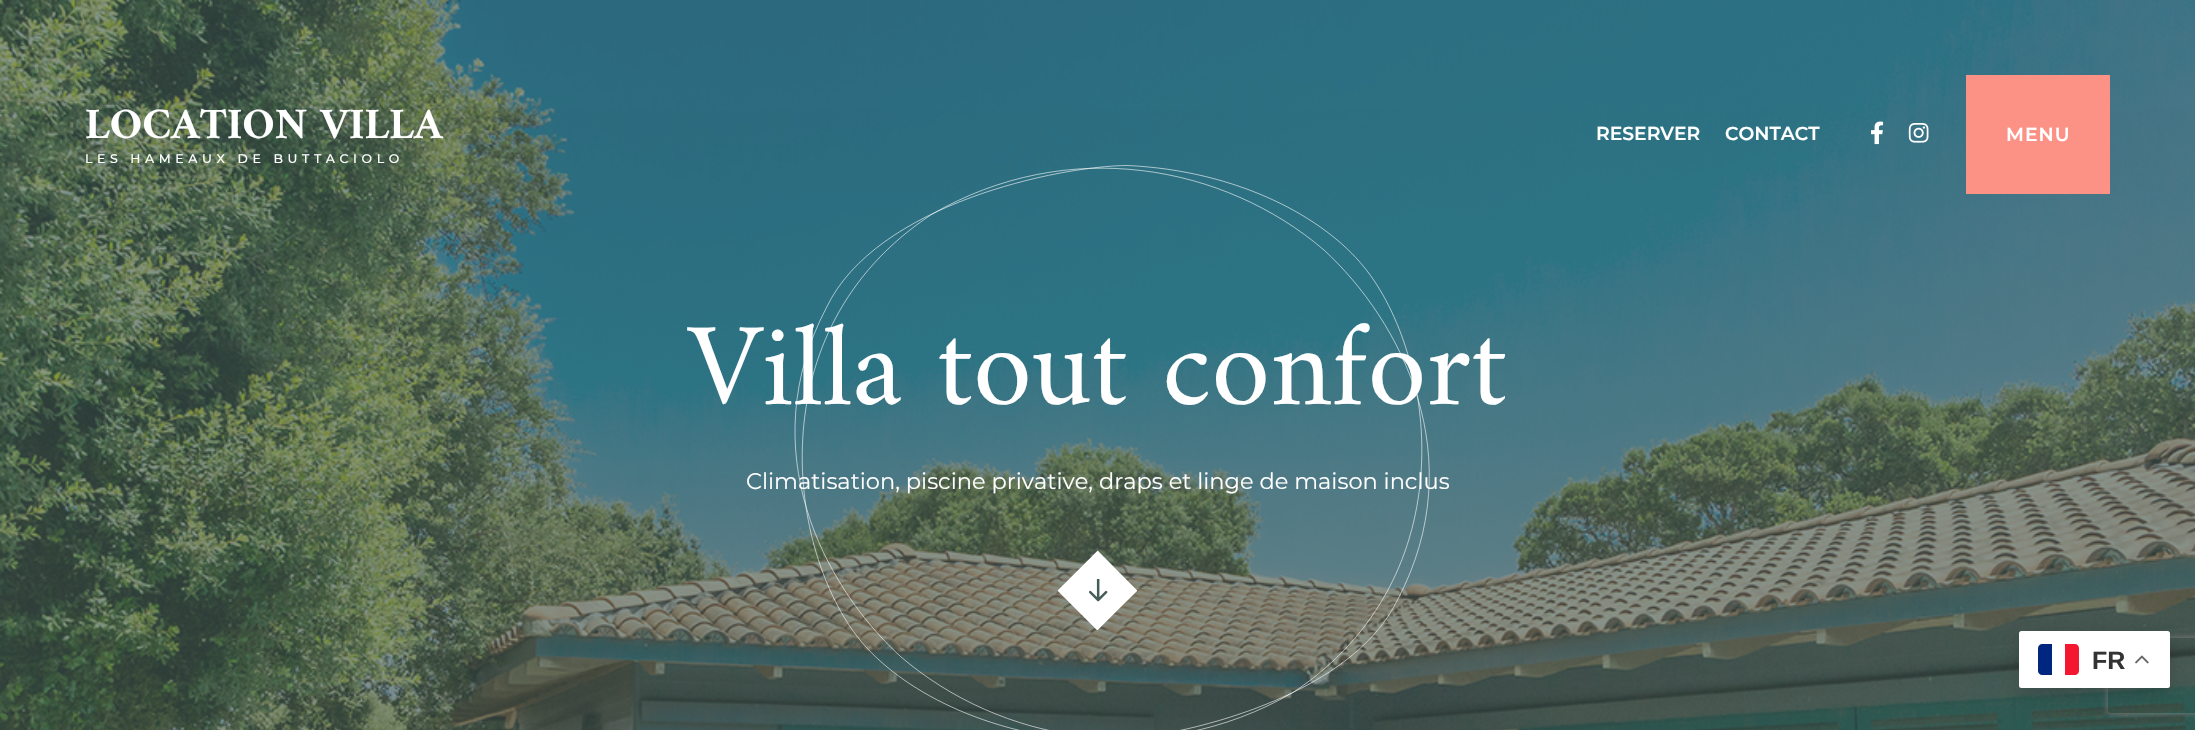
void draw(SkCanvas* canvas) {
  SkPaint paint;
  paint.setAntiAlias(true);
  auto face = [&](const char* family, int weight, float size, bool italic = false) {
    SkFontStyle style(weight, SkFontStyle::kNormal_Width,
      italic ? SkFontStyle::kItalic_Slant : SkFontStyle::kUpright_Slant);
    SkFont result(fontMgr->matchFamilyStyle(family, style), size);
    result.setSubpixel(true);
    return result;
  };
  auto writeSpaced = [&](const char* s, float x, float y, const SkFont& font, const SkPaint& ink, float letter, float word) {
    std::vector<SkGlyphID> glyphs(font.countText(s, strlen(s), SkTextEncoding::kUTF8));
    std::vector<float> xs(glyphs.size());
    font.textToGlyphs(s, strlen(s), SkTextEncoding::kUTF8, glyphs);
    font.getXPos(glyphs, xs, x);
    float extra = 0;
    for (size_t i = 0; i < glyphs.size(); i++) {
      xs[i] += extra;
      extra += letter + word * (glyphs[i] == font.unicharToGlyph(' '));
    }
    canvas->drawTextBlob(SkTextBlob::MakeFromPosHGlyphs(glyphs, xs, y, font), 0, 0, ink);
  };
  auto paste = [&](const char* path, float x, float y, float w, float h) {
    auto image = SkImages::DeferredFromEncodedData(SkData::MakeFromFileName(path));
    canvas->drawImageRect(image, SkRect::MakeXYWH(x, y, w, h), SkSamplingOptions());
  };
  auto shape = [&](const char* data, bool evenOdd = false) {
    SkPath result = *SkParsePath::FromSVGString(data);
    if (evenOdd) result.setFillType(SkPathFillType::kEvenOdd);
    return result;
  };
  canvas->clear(0xffffffff);
  paste("img/3.png", 0, 0, 2195, 730);
  paste("img/1.png", 1871, 121, 13, 24);
  paste("img/2.png", 1908, 123, 21, 20);
  paint.setColor(0xfffc9285);
  canvas->drawRect(SkRect::MakeXYWH(1966, 75, 144, 119), paint);
  paint.setStroke(true);
  paint.setStrokeWidth(0.6f);
  paint.setColor(0xffffffff);
  canvas->drawPath(shape("M1398 599C1472 457.5 1401.5 321.5 1324 250C1224.5 165 1068.5 135 931.5 214.5C754.5 331 789 553 860 640C899.5 688.5 985 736 1097.5 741.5C1163.5 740.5 1348 703.5 1398 599Z"), paint);
  canvas->drawPath(shape("M826.5 307.5C752 449 823 585.5 900.5 656.5C999.5 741.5 1155.5 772 1293 692.5C1469.5 575.5 1435 354 1364 267C1324.5 218 1239 170.5 1127 165.5C1060.5 166 876 203.5 826.5 307.5Z"), paint);
  paint.setStrokeWidth(2.5f);
  canvas->drawPath(shape("M1059.5 590.5L1097.5 552.5L1135.5 590.5L1097.5 628.5Z"), paint);
  paint.setStroke(false);
  canvas->drawPath(shape("M1058 591L1098 551L1137 591L1097 630Z"), paint);
  paste("img/4.png", 1089, 579, 19, 23);
  canvas->save();
  canvas->clipPath(shape("M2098 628H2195V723H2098ZM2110.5 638H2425.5C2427 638 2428 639 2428 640.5V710.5C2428 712 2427 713 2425.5 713H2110.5C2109 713 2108 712 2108 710.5V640.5C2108 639 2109 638 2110.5 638Z", true), true);
  paint.setColor(0xff808080);
  paint.setMaskFilter(SkMaskFilter::MakeBlur(kNormal_SkBlurStyle, 3));
  canvas->drawRoundRect(SkRect::MakeXYWH(2108, 638, 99, 75), 2.5f, 2.5f, paint);
  paint.setMaskFilter(nullptr);
  canvas->restore();
  paint.setColor(0x26000000);
  paint.setMaskFilter(SkMaskFilter::MakeBlur(kNormal_SkBlurStyle, 9.5f));
  canvas->drawRoundRect(SkRect::MakeXYWH(2019, 638, 151, 56), 2.5f, 2.5f, paint);
  paint.setMaskFilter(nullptr);
  paint.setColor(0xffffffff);
  canvas->drawRoundRect(SkRect::MakeXYWH(2019, 631, 151, 57), 2.5f, 2.5f, paint);
  paint.setColor(0xff00267f);
  canvas->drawPath(shape("M2042 644H2052V675H2042C2040 675 2038 673 2038 671V648C2038 646 2040 644 2042 644Z"), paint);
  paint.setColor(0xfff31830);
  canvas->drawPath(shape("M2065 644H2075C2077 644 2079 646 2079 648V671C2079 673 2077 675 2075 675H2065Z"), paint);
  paste("img/5.png", 2135, 655, 14, 9);
  auto f0 = face("Amiri", 700, 43.75f);
  paint.setColor(0xffffffff);
  canvas->drawString("LOCATION VILLA", 85, 138, f0, paint);
  auto f1 = face("Montserrat", 500, 12.5f);
  writeSpaced("LES HAMEAUX DE BUTTACIOLO", 85, 163, f1, paint, 4.6f, 0);
  auto f2 = face("Montserrat", 600, 18.75f);
  canvas->drawString("RESERVER", 1596, 140, f2, paint);
  canvas->drawString("CONTACT", 1725, 140, f2, paint);
  writeSpaced("MENU", 2006, 141, f2, paint, 1, 0);
  auto f3 = face("Amiri", 400, 118.75f);
  canvas->drawString("Villa tout confort", 688, 404, f3, paint);
  auto f4 = face("Montserrat", 400, 22.5f);
  canvas->drawString("Climatisation, piscine privative, draps et linge de maison inclus", 746, 489, f4, paint);
  auto f5 = face("Liberation Sans", 700, 25);
  paint.setColor(0xff333333);
  canvas->drawString("FR", 2092, 669, f5, paint);
}
